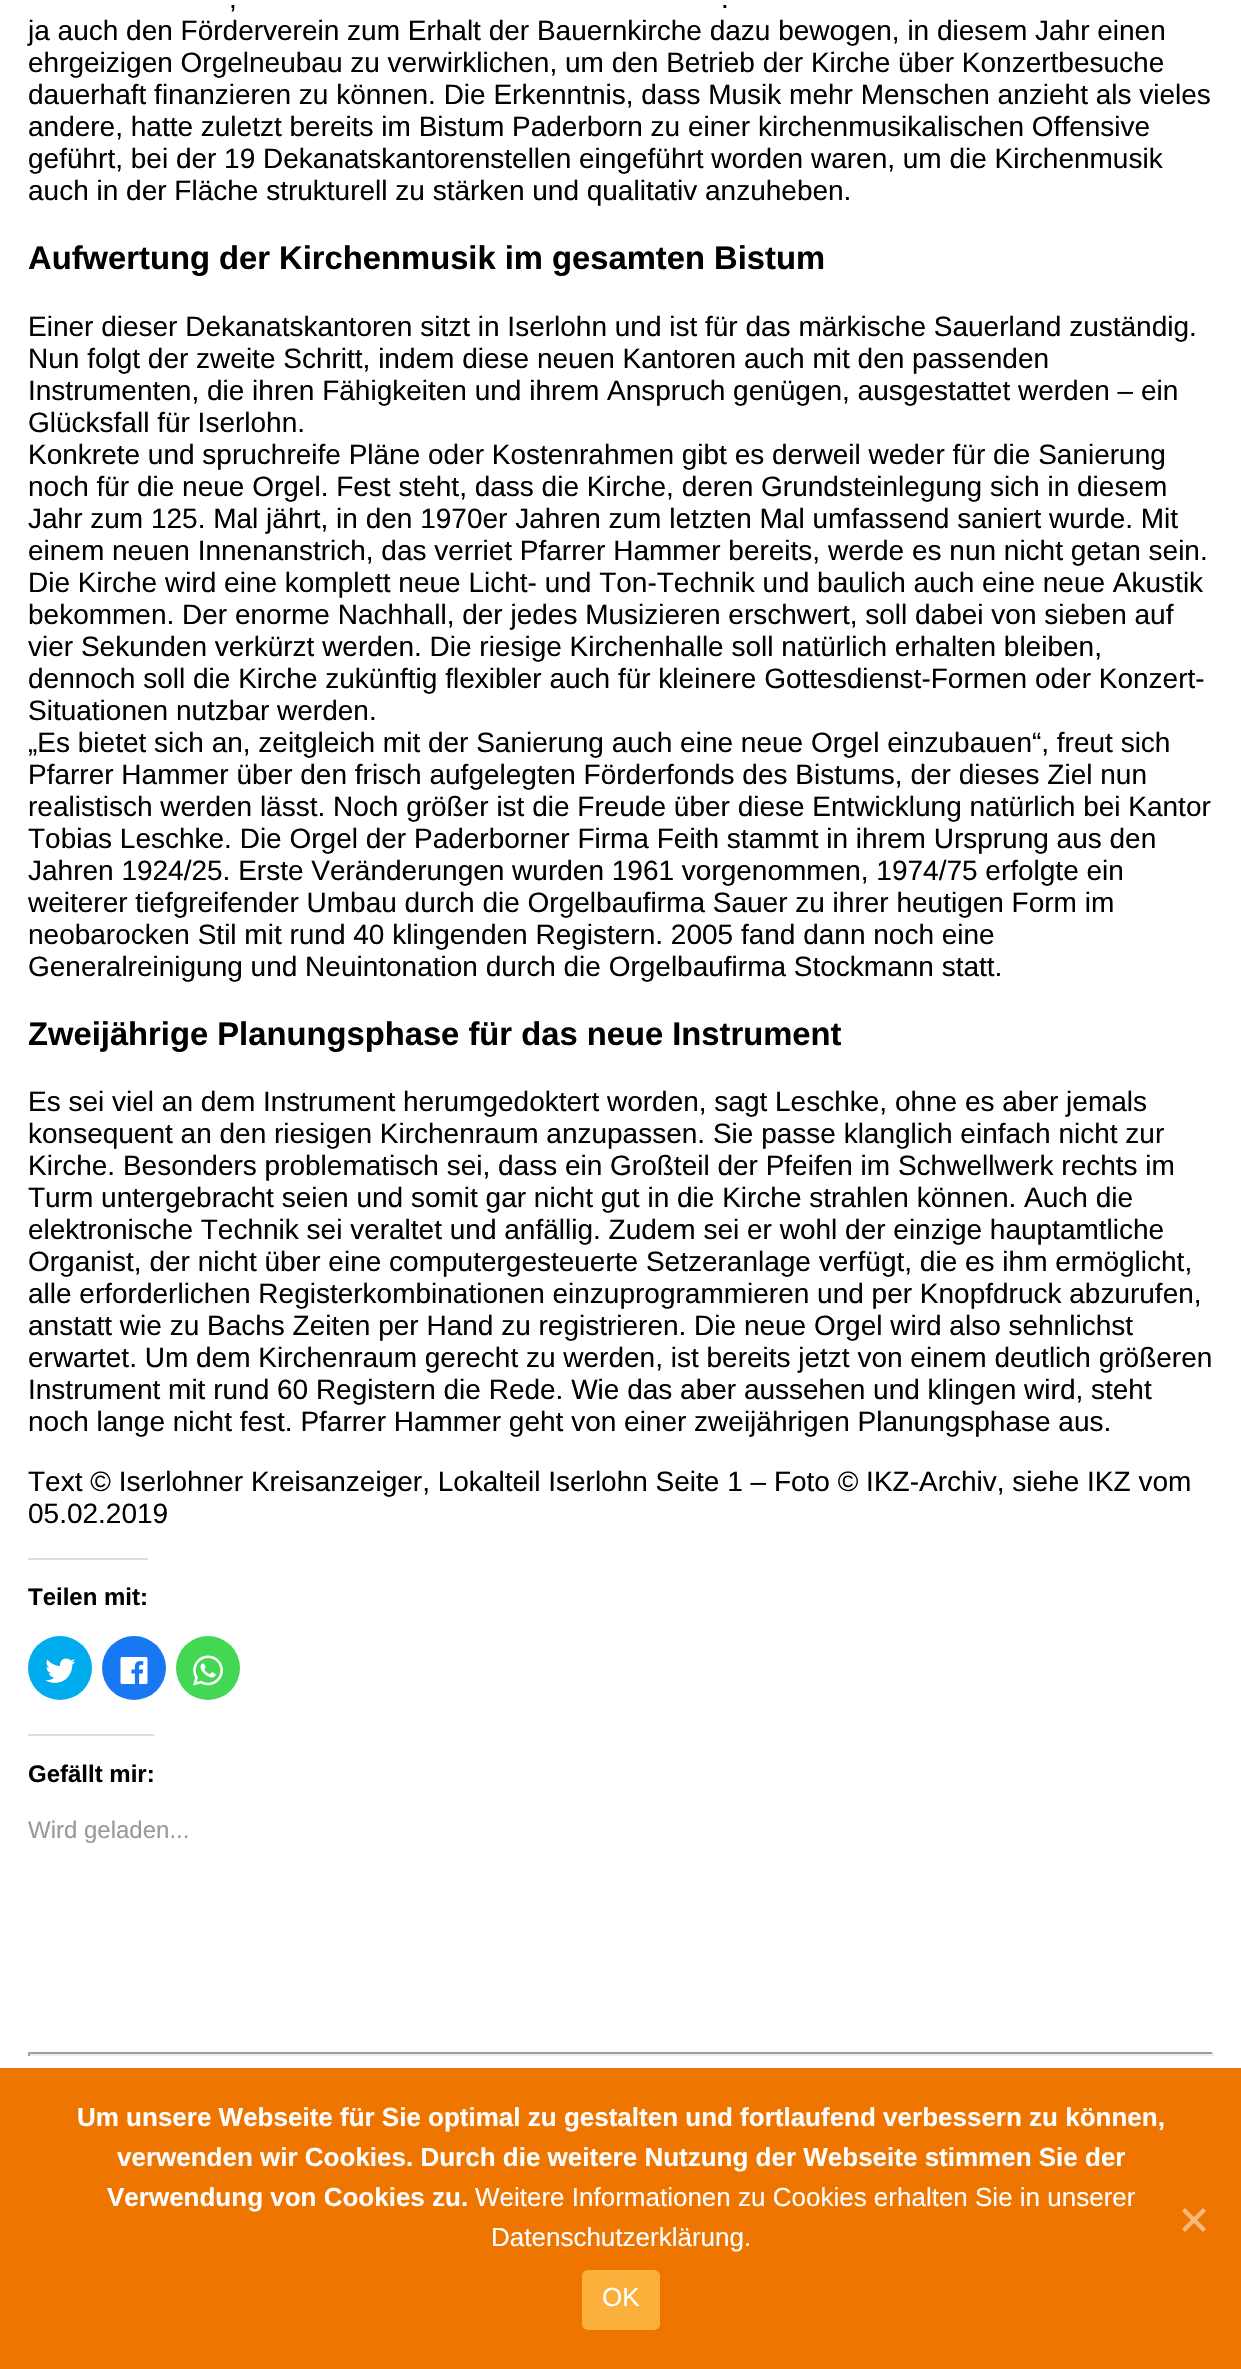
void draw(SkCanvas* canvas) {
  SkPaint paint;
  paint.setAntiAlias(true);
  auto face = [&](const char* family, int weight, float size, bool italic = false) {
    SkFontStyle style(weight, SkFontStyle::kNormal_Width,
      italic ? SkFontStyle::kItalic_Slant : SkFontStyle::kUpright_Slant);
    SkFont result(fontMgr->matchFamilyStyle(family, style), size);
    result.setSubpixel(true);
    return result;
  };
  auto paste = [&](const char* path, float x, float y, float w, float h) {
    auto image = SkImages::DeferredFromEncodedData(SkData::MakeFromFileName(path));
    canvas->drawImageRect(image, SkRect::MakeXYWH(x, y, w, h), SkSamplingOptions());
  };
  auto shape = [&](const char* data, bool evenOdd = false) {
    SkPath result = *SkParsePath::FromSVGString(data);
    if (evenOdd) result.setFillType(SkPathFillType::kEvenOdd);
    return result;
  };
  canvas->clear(0xffffffff);
  paint.setColor(0xffdddddd);
  canvas->drawRect(SkRect::MakeXYWH(28, 1558, 120, 2), paint);
  paint.setColor(0xff00acee);
  canvas->drawCircle(60, 1668, 32, paint);
  paste("img/1.png", 45, 1658, 31, 25);
  paint.setColor(0xff1877f2);
  canvas->drawCircle(134, 1668, 32, paint);
  paste("img/2.png", 120, 1657, 28, 27);
  paint.setColor(0xff43d854);
  canvas->drawCircle(208, 1668, 32, paint);
  paste("img/3.png", 193, 1655, 30, 31);
  {
    const struct { float x, y, w, h; SkColor color; } items[] = {
      {28, 1734, 126, 2, 0xffdddddd},
      {28, 2052, 1186, 2, 0xff9f9f9f},
      {1212, 2052, 2, 4, 0xffeeeeee},
      {28, 2054, 1186, 2, 0xffeeeeee},
      {28, 2052, 2, 4, 0xff9f9f9f},
      {0, 2068, 1241, 301, 0xffee7500},
    };
    for (auto [x, y, w, h, color] : items) {
      paint.setColor(color);
      canvas->drawRect(SkRect::MakeXYWH(x, y, w, h), paint);
    }
  }
  paint.setColor(0xfff7ba80);
  canvas->drawPath(shape("M1203 2208L1206 2211L1185 2232L1182 2229Z"), paint);
  canvas->drawPath(shape("M1182 2211L1185 2208L1206 2229L1203 2232Z"), paint);
  paint.setColor(0xfffbb03b);
  canvas->drawRoundRect(SkRect::MakeXYWH(582, 2270, 78, 60), 6, 6, paint);
  auto f0 = face("Liberation Sans", 400, 28);
  paint.setColor(0xff000000);
  {
    const struct { const char* s; float x, y; } items[] = {
      {",", 229, 8},
      {".", 721, 8},
      {"ja auch den Förderverein zum Erhalt der Bauernkirche dazu bewogen, in diesem Jahr einen", 28, 40},
      {"ehrgeizigen Orgelneubau zu verwirklichen, um den Betrieb der Kirche über Konzertbesuche", 28, 72},
      {"dauerhaft finanzieren zu können. Die Erkenntnis, dass Musik mehr Menschen anzieht als vieles", 28, 104},
      {"andere, hatte zuletzt bereits im Bistum Paderborn zu einer kirchenmusikalischen Offensive", 28, 136},
      {"geführt, bei der 19 Dekanatskantorenstellen eingeführt worden waren, um die Kirchenmusik", 28, 168},
      {"auch in der Fläche strukturell zu stärken und qualitativ anzuheben.", 28, 200},
    };
    for (auto [s, x, y] : items) {
      canvas->drawString(s, x, y, f0, paint);
    }
  }
  auto f1 = face("Liberation Sans", 700, 32.75f);
  canvas->drawString("Aufwertung der Kirchenmusik im gesamten Bistum", 28, 269, f1, paint);
  {
    const struct { const char* s; float x, y; } items[] = {
      {"Einer dieser Dekanatskantoren sitzt in Iserlohn und ist für das märkische Sauerland zuständig.", 28, 336},
      {"Nun folgt der zweite Schritt, indem diese neuen Kantoren auch mit den passenden", 28, 368},
      {"Instrumenten, die ihren Fähigkeiten und ihrem Anspruch genügen, ausgestattet werden – ein", 28, 400},
      {"Glücksfall für Iserlohn.", 28, 432},
      {"Konkrete und spruchreife Pläne oder Kostenrahmen gibt es derweil weder für die Sanierung", 28, 464},
      {"noch für die neue Orgel. Fest steht, dass die Kirche, deren Grundsteinlegung sich in diesem", 28, 496},
      {"Jahr zum 125. Mal jährt, in den 1970er Jahren zum letzten Mal umfassend saniert wurde. Mit", 28, 528},
      {"einem neuen Innenanstrich, das verriet Pfarrer Hammer bereits, werde es nun nicht getan sein.", 28, 560},
      {"Die Kirche wird eine komplett neue Licht- und Ton-Technik und baulich auch eine neue Akustik", 28, 592},
      {"bekommen. Der enorme Nachhall, der jedes Musizieren erschwert, soll dabei von sieben auf", 28, 624},
      {"vier Sekunden verkürzt werden. Die riesige Kirchenhalle soll natürlich erhalten bleiben,", 28, 656},
      {"dennoch soll die Kirche zukünftig flexibler auch für kleinere Gottesdienst-Formen oder Konzert-", 28, 688},
      {"Situationen nutzbar werden.", 28, 720},
      {"„Es bietet sich an, zeitgleich mit der Sanierung auch eine neue Orgel einzubauen“, freut sich", 28, 752},
      {"Pfarrer Hammer über den frisch aufgelegten Förderfonds des Bistums, der dieses Ziel nun", 28, 784},
      {"realistisch werden lässt. Noch größer ist die Freude über diese Entwicklung natürlich bei Kantor", 28, 816},
      {"Tobias Leschke. Die Orgel der Paderborner Firma Feith stammt in ihrem Ursprung aus den", 28, 848},
      {"Jahren 1924/25. Erste Veränderungen wurden 1961 vorgenommen, 1974/75 erfolgte ein", 28, 880},
      {"weiterer tiefgreifender Umbau durch die Orgelbaufirma Sauer zu ihrer heutigen Form im", 28, 912},
      {"neobarocken Stil mit rund 40 klingenden Registern. 2005 fand dann noch eine", 28, 944},
      {"Generalreinigung und Neuintonation durch die Orgelbaufirma Stockmann statt.", 28, 976},
    };
    for (auto [s, x, y] : items) {
      canvas->drawString(s, x, y, f0, paint);
    }
  }
  canvas->drawString("Zweijährige Planungsphase für das neue Instrument", 28, 1045, f1, paint);
  {
    const struct { const char* s; float x, y; } items[] = {
      {"Es sei viel an dem Instrument herumgedoktert worden, sagt Leschke, ohne es aber jemals", 28, 1111},
      {"konsequent an den riesigen Kirchenraum anzupassen. Sie passe klanglich einfach nicht zur", 28, 1143},
      {"Kirche. Besonders problematisch sei, dass ein Großteil der Pfeifen im Schwellwerk rechts im", 28, 1175},
      {"Turm untergebracht seien und somit gar nicht gut in die Kirche strahlen können. Auch die", 28, 1207},
      {"elektronische Technik sei veraltet und anfällig. Zudem sei er wohl der einzige hauptamtliche", 28, 1239},
      {"Organist, der nicht über eine computergesteuerte Setzeranlage verfügt, die es ihm ermöglicht,", 28, 1271},
      {"alle erforderlichen Registerkombinationen einzuprogrammieren und per Knopfdruck abzurufen,", 28, 1303},
      {"anstatt wie zu Bachs Zeiten per Hand zu registrieren. Die neue Orgel wird also sehnlichst", 28, 1335},
      {"erwartet. Um dem Kirchenraum gerecht zu werden, ist bereits jetzt von einem deutlich größeren", 28, 1367},
      {"Instrument mit rund 60 Registern die Rede. Wie das aber aussehen und klingen wird, steht", 28, 1399},
      {"noch lange nicht fest. Pfarrer Hammer geht von einer zweijährigen Planungsphase aus.", 28, 1431},
      {"Text © Iserlohner Kreisanzeiger, Lokalteil Iserlohn Seite 1 – Foto © IKZ-Archiv, siehe IKZ vom", 28, 1491},
      {"05.02.2019", 28, 1523},
    };
    for (auto [s, x, y] : items) {
      canvas->drawString(s, x, y, f0, paint);
    }
  }
  auto f2 = face("Liberation Sans", 700, 24);
  canvas->drawString("Teilen mit:", 28, 1605, f2, paint);
  canvas->drawString("Gefällt mir:", 28, 1782, f2, paint);
  auto f3 = face("Liberation Sans", 400, 24);
  paint.setColor(0xff999999);
  canvas->drawString("Wird geladen...", 28, 1838, f3, paint);
  auto f4 = face("Liberation Sans", 700, 26);
  paint.setColor(0xffffffff);
  {
    const struct { const char* s; float x, y; } items[] = {
      {"Um unsere Webseite für Sie optimal zu gestalten und fortlaufend verbessern zu können,", 77, 2126},
      {"verwenden wir Cookies. Durch die weitere Nutzung der Webseite stimmen Sie der", 117, 2166},
      {"Verwendung von Cookies zu.", 107, 2206},
    };
    for (auto [s, x, y] : items) {
      canvas->drawString(s, x, y, f4, paint);
    }
  }
  auto f5 = face("Liberation Sans", 400, 26);
  {
    const struct { const char* s; float x, y; } items[] = {
      {"Weitere Informationen zu Cookies erhalten Sie in unserer", 475, 2206},
      {"Datenschutzerklärung.", 491, 2246},
      {"OK", 602, 2306},
    };
    for (auto [s, x, y] : items) {
      canvas->drawString(s, x, y, f5, paint);
    }
  }
}
